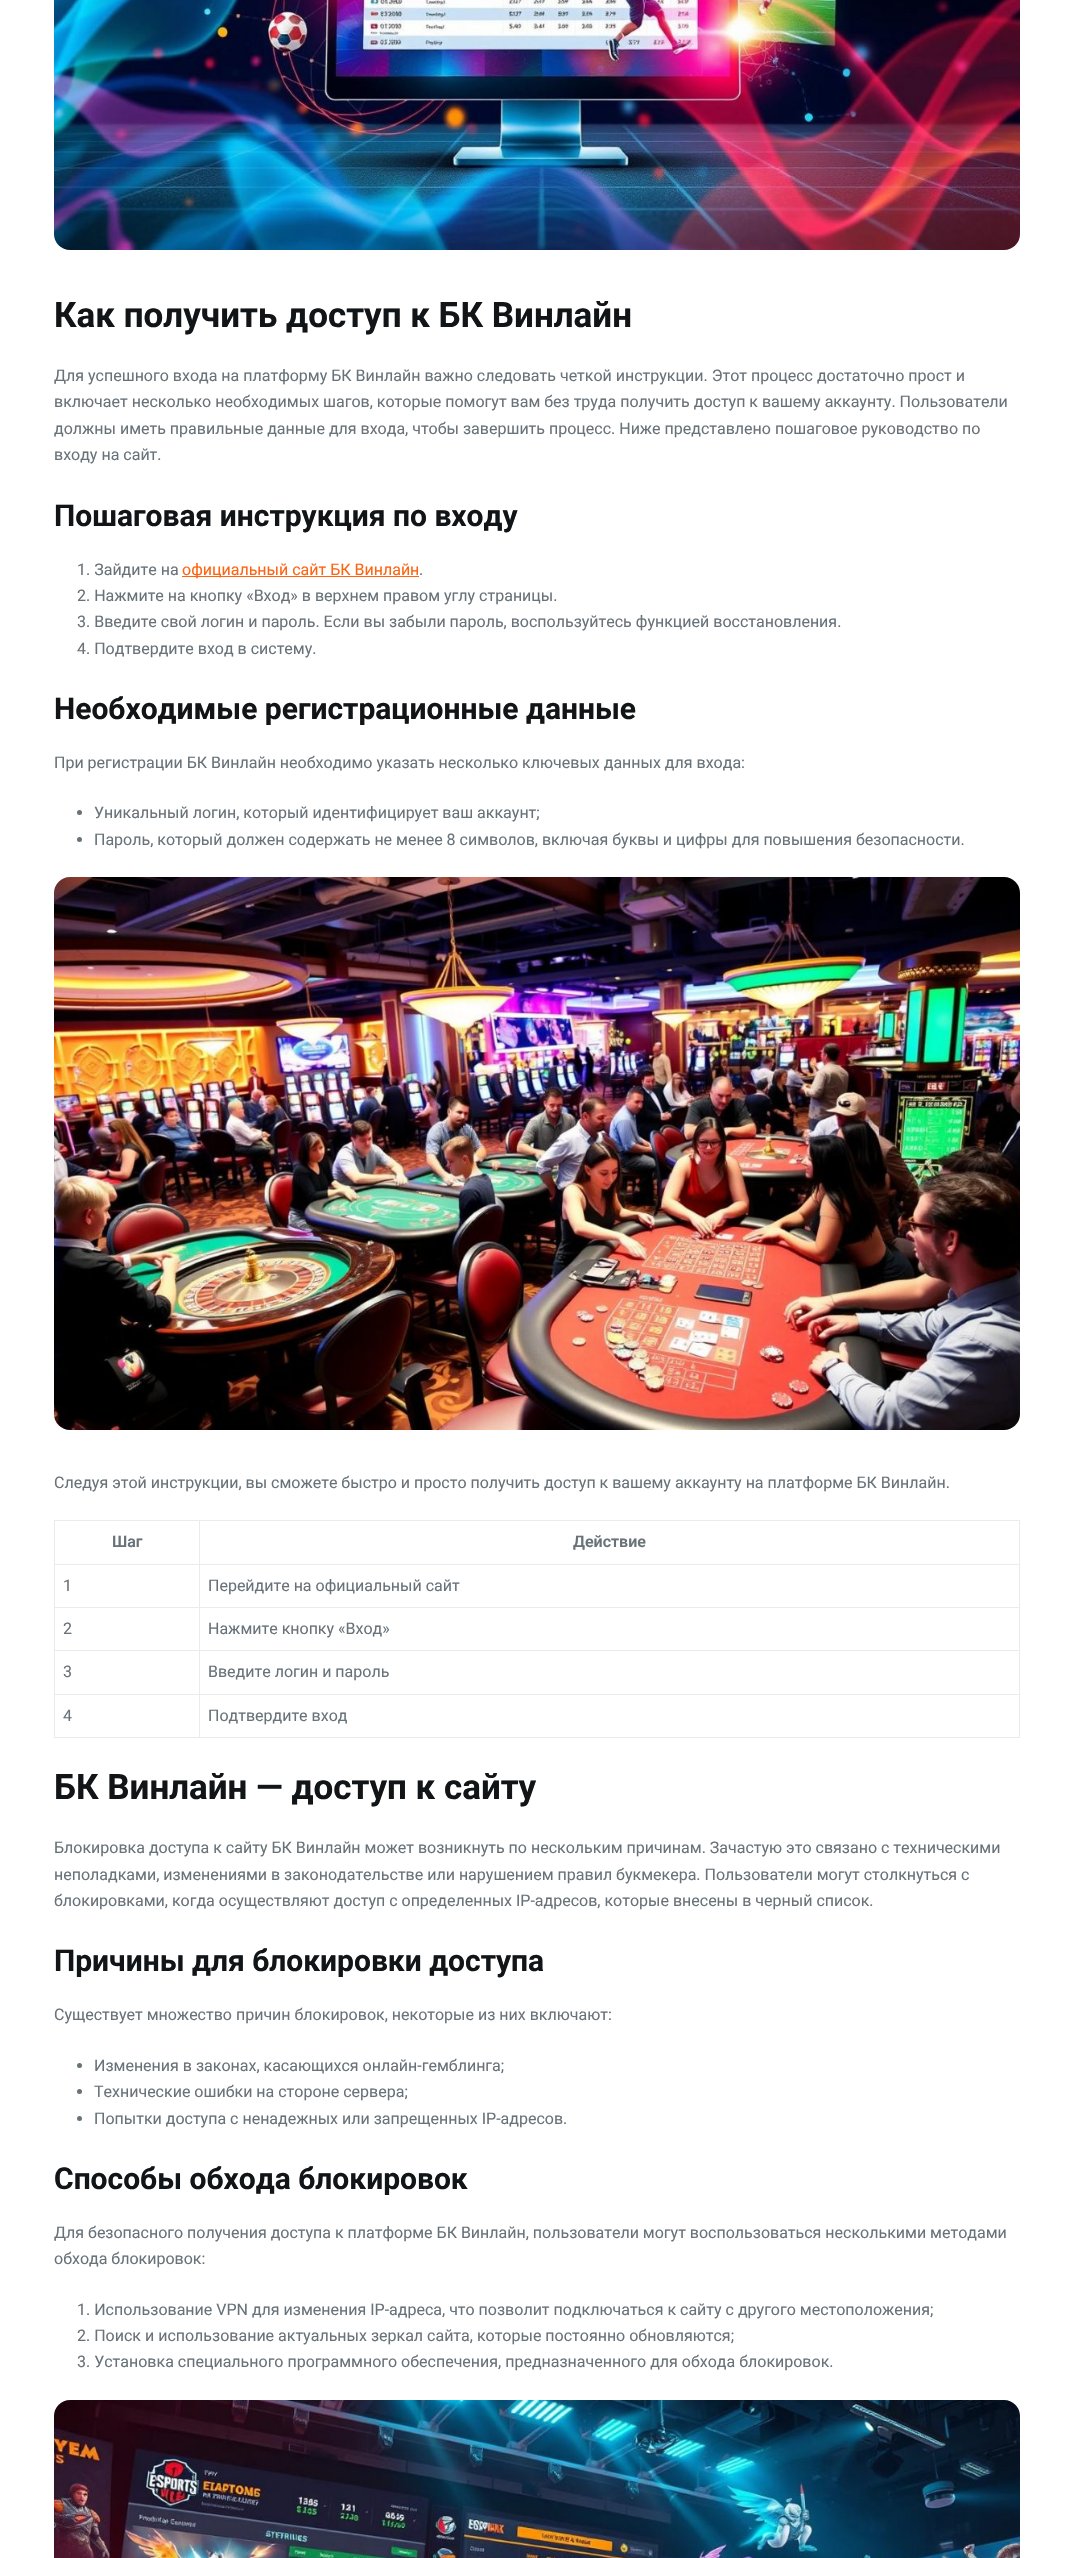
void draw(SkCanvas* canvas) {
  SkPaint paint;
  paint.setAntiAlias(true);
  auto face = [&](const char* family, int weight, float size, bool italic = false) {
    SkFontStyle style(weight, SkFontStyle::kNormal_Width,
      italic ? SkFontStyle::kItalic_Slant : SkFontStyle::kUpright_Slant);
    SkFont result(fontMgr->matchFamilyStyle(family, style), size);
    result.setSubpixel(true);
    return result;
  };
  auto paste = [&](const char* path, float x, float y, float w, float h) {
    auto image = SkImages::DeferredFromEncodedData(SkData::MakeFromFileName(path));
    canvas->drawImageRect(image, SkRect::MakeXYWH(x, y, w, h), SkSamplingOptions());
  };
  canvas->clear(0xffffffff);
  paste("img/1.png", 54, 0, 966, 250);
  paint.setColor(0xffff6310);
  canvas->drawRect(SkRect::MakeXYWH(182, 576, 237, 1), paint);
  paint.setColor(0xff687279);
  canvas->drawCircle(79.5f, 812.5f, 2.5f, paint);
  canvas->drawCircle(79.5f, 839.5f, 2.5f, paint);
  paste("img/2.png", 54, 877, 966, 553);
  {
    const struct { float x, y, w, h; SkColor color; } items[] = {
      {54, 1520, 966, 1, 0xffe9ebec},
      {1019, 1520, 1, 218, 0xffe9ebec},
      {54, 1737, 966, 1, 0xffe9ebec},
      {54, 1520, 1, 218, 0xffe9ebec},
      {199, 1564, 821, 1, 0xffe9ebec},
      {199, 1607, 821, 1, 0xffe9ebec},
      {199, 1650, 821, 1, 0xffe9ebec},
      {199, 1694, 821, 1, 0xffe9ebec},
      {199, 1694, 1, 44, 0xffe9ebec},
      {54, 1694, 146, 1, 0xffe9ebec},
      {199, 1650, 1, 45, 0xffe9ebec},
      {54, 1650, 146, 1, 0xffe9ebec},
      {199, 1607, 1, 44, 0xffe9ebec},
      {54, 1607, 146, 1, 0xffe9ebec},
      {199, 1564, 1, 44, 0xffe9ebec},
      {54, 1564, 146, 1, 0xffe9ebec},
      {199, 1520, 1, 45, 0xffe9ebec},
    };
    for (auto [x, y, w, h, color] : items) {
      paint.setColor(color);
      canvas->drawRect(SkRect::MakeXYWH(x, y, w, h), paint);
    }
  }
  paint.setColor(0xff687279);
  canvas->drawCircle(79.5f, 2065.5f, 2.5f, paint);
  canvas->drawCircle(79.5f, 2091.5f, 2.5f, paint);
  canvas->drawCircle(79.5f, 2118.5f, 2.5f, paint);
  paste("img/3.png", 54, 2400, 966, 158);
  auto f0 = face("Roboto", 700, 35);
  paint.setColor(0xff111518);
  canvas->drawString("Как получить доступ к БК Винлайн", 54, 327, f0, paint);
  auto f1 = face("Roboto", 400, 16);
  paint.setColor(0xff687279);
  {
    const struct { const char* s; float x, y; } items[] = {
      {"Для успешного входа на платформу БК Винлайн важно следовать четкой инструкции. Этот процесс достаточно прост и", 54, 381},
      {"включает несколько необходимых шагов, которые помогут вам без труда получить доступ к вашему аккаунту. Пользователи", 54, 407},
      {"должны иметь правильные данные для входа, чтобы завершить процесс. Ниже представлено пошаговое руководство по", 54, 434},
      {"входу на сайт.", 54, 460},
    };
    for (auto [s, x, y] : items) {
      canvas->drawString(s, x, y, f1, paint);
    }
  }
  auto f2 = face("Roboto", 700, 30);
  paint.setColor(0xff111518);
  canvas->drawString("Пошаговая инструкция по входу", 54, 526, f2, paint);
  paint.setColor(0xff687279);
  canvas->drawString("1. Зайдите на", 77, 575, f1, paint);
  paint.setColor(0xffff6310);
  canvas->drawString("официальный сайт БК Винлайн", 182, 575, f1, paint);
  paint.setColor(0xff687279);
  {
    const struct { const char* s; float x, y; } items[] = {
      {".", 419, 575},
      {"2. Нажмите на кнопку «Вход» в верхнем правом углу страницы.", 77, 601},
      {"3. Введите свой логин и пароль. Если вы забыли пароль, воспользуйтесь функцией восстановления.", 77, 627},
      {"4. Подтвердите вход в систему.", 77, 654},
    };
    for (auto [s, x, y] : items) {
      canvas->drawString(s, x, y, f1, paint);
    }
  }
  paint.setColor(0xff111518);
  canvas->drawString("Необходимые регистрационные данные", 54, 719, f2, paint);
  paint.setColor(0xff687279);
  {
    const struct { const char* s; float x, y; } items[] = {
      {"При регистрации БК Винлайн необходимо указать несколько ключевых данных для входа:", 54, 768},
      {"Уникальный логин, который идентифицирует ваш аккаунт;", 94, 818},
      {"Пароль, который должен содержать не менее 8 символов, включая буквы и цифры для повышения безопасности.", 94, 845},
      {"Следуя этой инструкции, вы сможете быстро и просто получить доступ к вашему аккаунту на платформе БК Винлайн.", 54, 1488},
    };
    for (auto [s, x, y] : items) {
      canvas->drawString(s, x, y, f1, paint);
    }
  }
  auto f3 = face("Roboto", 600, 16);
  canvas->drawString("Шаг", 112, 1547, f3, paint);
  canvas->drawString("Действие", 573, 1547, f3, paint);
  {
    const struct { const char* s; float x, y; } items[] = {
      {"1", 63, 1591},
      {"Перейдите на официальный сайт", 208, 1591},
      {"2", 63, 1634},
      {"Нажмите кнопку «Вход»", 208, 1634},
      {"3", 63, 1677},
      {"Введите логин и пароль", 208, 1677},
      {"4", 63, 1721},
      {"Подтвердите вход", 208, 1721},
    };
    for (auto [s, x, y] : items) {
      canvas->drawString(s, x, y, f1, paint);
    }
  }
  paint.setColor(0xff111518);
  canvas->drawString("БК Винлайн — доступ к сайту", 54, 1799, f0, paint);
  paint.setColor(0xff687279);
  {
    const struct { const char* s; float x, y; } items[] = {
      {"Блокировка доступа к сайту БК Винлайн может возникнуть по нескольким причинам. Зачастую это связано с техническими", 54, 1853},
      {"неполадками, изменениями в законодательстве или нарушением правил букмекера. Пользователи могут столкнуться с", 54, 1880},
      {"блокировками, когда осуществляют доступ с определенных IP-адресов, которые внесены в черный список.", 54, 1906},
    };
    for (auto [s, x, y] : items) {
      canvas->drawString(s, x, y, f1, paint);
    }
  }
  paint.setColor(0xff111518);
  canvas->drawString("Причины для блокировки доступа", 54, 1971, f2, paint);
  paint.setColor(0xff687279);
  {
    const struct { const char* s; float x, y; } items[] = {
      {"Существует множество причин блокировок, некоторые из них включают:", 54, 2020},
      {"Изменения в законах, касающихся онлайн-гемблинга;", 94, 2071},
      {"Технические ошибки на стороне сервера;", 94, 2097},
      {"Попытки доступа с ненадежных или запрещенных IP-адресов.", 94, 2124},
    };
    for (auto [s, x, y] : items) {
      canvas->drawString(s, x, y, f1, paint);
    }
  }
  paint.setColor(0xff111518);
  canvas->drawString("Способы обхода блокировок", 54, 2189, f2, paint);
  paint.setColor(0xff687279);
  {
    const struct { const char* s; float x, y; } items[] = {
      {"Для безопасного получения доступа к платформе БК Винлайн, пользователи могут воспользоваться несколькими методами", 54, 2238},
      {"обхода блокировок:", 54, 2264},
      {"1. Использование VPN для изменения IP-адреса, что позволит подключаться к сайту с другого местоположения;", 77, 2315},
      {"2. Поиск и использование актуальных зеркал сайта, которые постоянно обновляются;", 77, 2341},
      {"3. Установка специального программного обеспечения, предназначенного для обхода блокировок.", 77, 2367},
    };
    for (auto [s, x, y] : items) {
      canvas->drawString(s, x, y, f1, paint);
    }
  }
}
